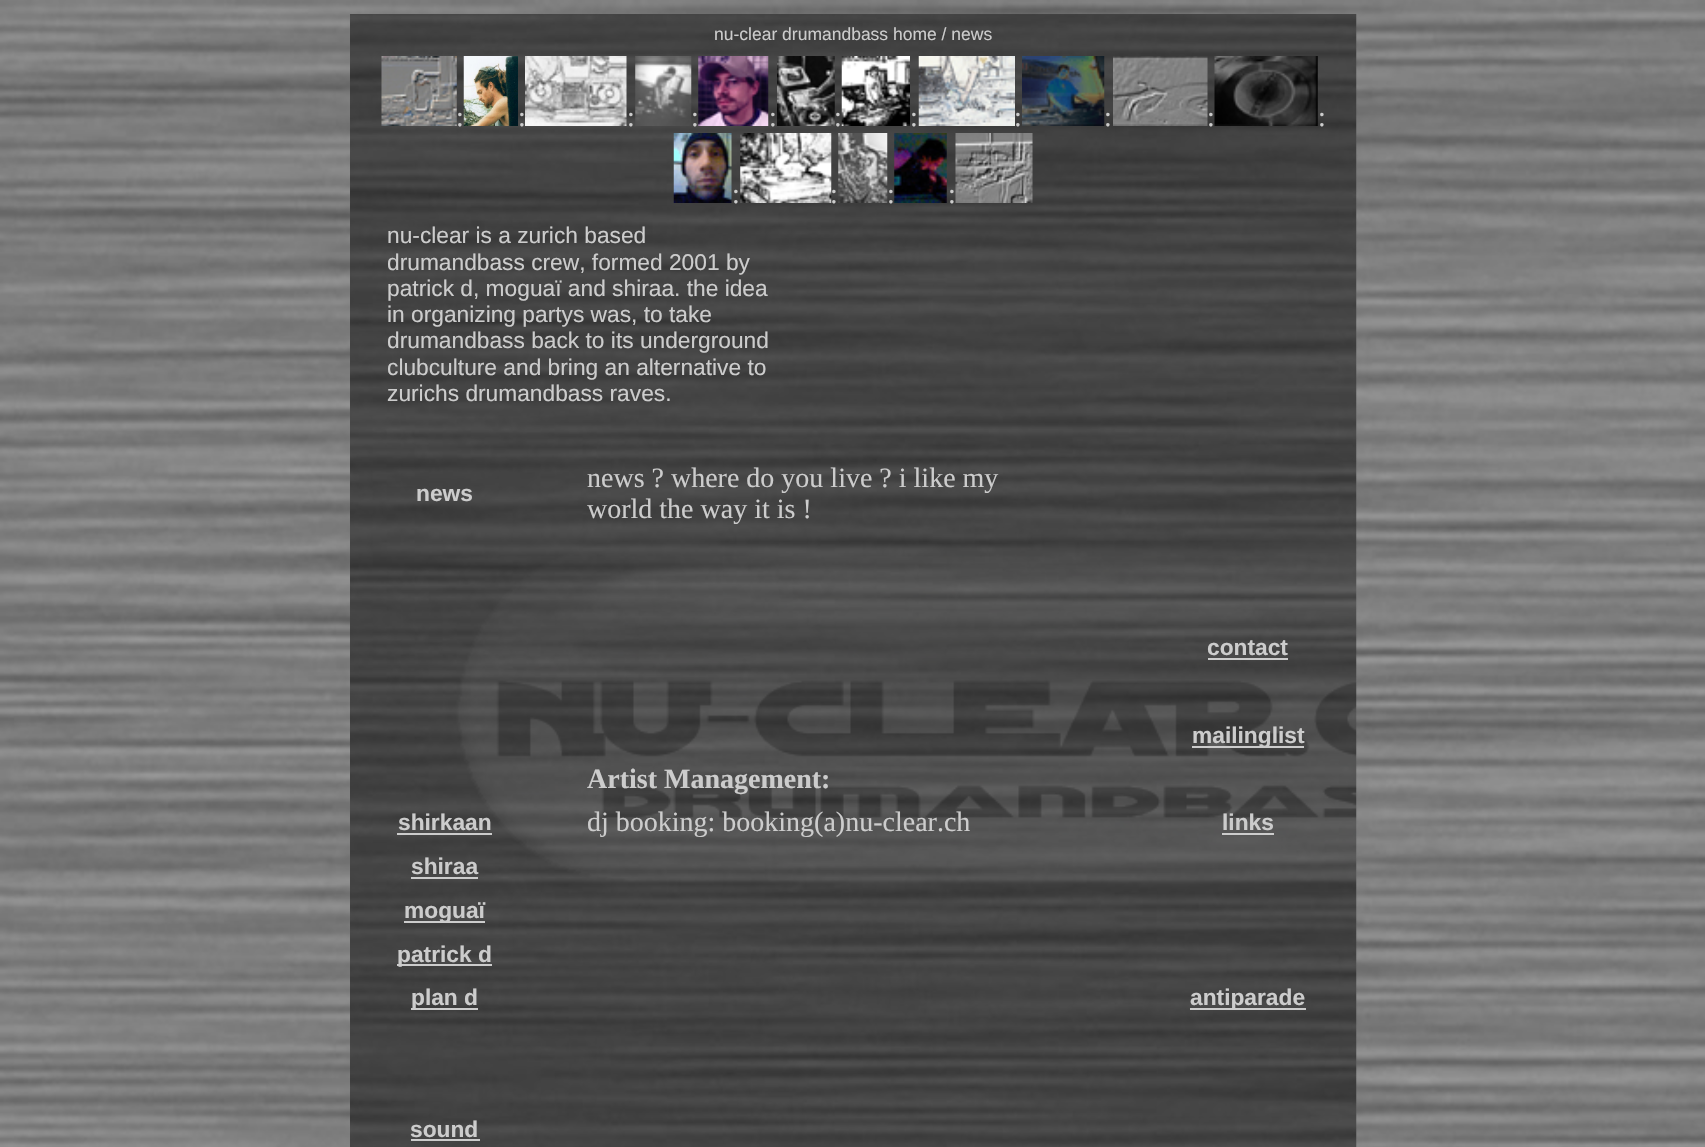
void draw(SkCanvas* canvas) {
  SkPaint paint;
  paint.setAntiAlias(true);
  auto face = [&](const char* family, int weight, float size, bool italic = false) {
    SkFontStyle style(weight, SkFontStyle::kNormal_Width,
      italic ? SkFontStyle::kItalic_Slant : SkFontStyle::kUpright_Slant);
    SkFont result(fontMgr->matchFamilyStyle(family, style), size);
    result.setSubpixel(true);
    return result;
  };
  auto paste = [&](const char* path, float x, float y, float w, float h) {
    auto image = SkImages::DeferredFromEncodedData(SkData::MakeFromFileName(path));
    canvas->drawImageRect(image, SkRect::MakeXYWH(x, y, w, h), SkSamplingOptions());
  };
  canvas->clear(0xffffffff);
  paste("img/1.png", 0, 0, 1705, 1147);
  paste("img/2.png", 350, 14, 1007, 1133);
  paste("img/3.png", 381, 56, 76, 70);
  paste("img/4.png", 463, 56, 55, 70);
  paste("img/5.png", 525, 56, 102, 70);
  paste("img/6.png", 635, 56, 57, 70);
  paste("img/7.png", 698, 56, 71, 70);
  paste("img/8.png", 777, 56, 58, 70);
  paste("img/9.png", 841, 56, 69, 70);
  paste("img/10.png", 918, 56, 97, 70);
  paste("img/11.png", 1022, 56, 83, 70);
  paste("img/12.png", 1113, 56, 95, 70);
  paste("img/13.png", 1214, 56, 104, 70);
  paste("img/14.png", 673, 133, 59, 70);
  paste("img/15.png", 740, 133, 92, 70);
  paste("img/16.png", 838, 133, 50, 70);
  paste("img/17.png", 894, 133, 53, 70);
  paste("img/18.png", 955, 133, 78, 70);
  {
    const struct { float x, y, w, h; SkColor color; } items[] = {
      {1208, 658, 80, 2, 0xffcccccc},
      {1192, 746, 112, 2, 0xffcccccc},
      {397, 833, 95, 2, 0xffcccccc},
      {1222, 833, 52, 2, 0xffcccccc},
      {411, 877, 67, 2, 0xffcccccc},
      {404, 921, 81, 2, 0xffcccccc},
      {397, 964, 95, 2, 0xffcccccc},
      {411, 1008, 67, 2, 0xffcccccc},
      {1190, 1008, 116, 2, 0xffcccccc},
      {411, 1139, 69, 2, 0xffcccccc},
    };
    for (auto [x, y, w, h, color] : items) {
      paint.setColor(color);
      canvas->drawRect(SkRect::MakeXYWH(x, y, w, h), paint);
    }
  }
  auto f0 = face("Liberation Sans", 400, 17.5f);
  canvas->drawString("nu-clear drumandbass home / news", 714, 40, f0, paint);
  auto f1 = face("Liberation Serif", 400, 28);
  {
    const struct { const char* s; float x, y; } items[] = {
      {":", 456, 126},
      {":", 518, 126},
      {":", 627, 126},
      {":", 691, 126},
      {":", 769, 126},
      {":", 834, 126},
      {":", 910, 126},
      {":", 1014, 126},
      {":", 1104, 126},
      {":", 1207, 126},
      {":", 1318, 126},
      {":", 732, 203},
      {":", 830, 203},
      {":", 887, 203},
      {":", 948, 203},
    };
    for (auto [s, x, y] : items) {
      canvas->drawString(s, x, y, f1, paint);
    }
  }
  auto f2 = face("Liberation Sans", 400, 22.75f);
  {
    const struct { const char* s; float x, y; } items[] = {
      {"nu-clear is a zurich based", 387, 243},
      {"drumandbass crew, formed 2001 by", 387, 270},
      {"patrick d, moguaï and shiraa. the idea", 387, 296},
      {"in organizing partys was, to take", 387, 322},
      {"drumandbass back to its underground", 387, 348},
      {"clubculture and bring an alternative to", 387, 375},
      {"zurichs drumandbass raves.", 387, 401},
    };
    for (auto [s, x, y] : items) {
      canvas->drawString(s, x, y, f2, paint);
    }
  }
  auto f3 = face("Liberation Sans", 700, 22.75f);
  canvas->drawString("news", 416, 501, f3, paint);
  canvas->drawString("news ? where do you live ? i like my", 587, 487, f1, paint);
  canvas->drawString("world the way it is !", 587, 518, f1, paint);
  canvas->drawString("contact", 1207, 655, f3, paint);
  canvas->drawString("mailinglist", 1192, 743, f3, paint);
  auto f4 = face("Liberation Serif", 700, 28);
  canvas->drawString("Artist Management:", 587, 788, f4, paint);
  canvas->drawString("shirkaan", 398, 830, f3, paint);
  canvas->drawString("dj booking: booking(a)nu-clear.ch", 587, 831, f1, paint);
  {
    const struct { const char* s; float x, y; } items[] = {
      {"links", 1222, 830},
      {"shiraa", 411, 874},
      {"moguaï", 404, 918},
      {"patrick d", 397, 962},
      {"plan d", 411, 1005},
      {"antiparade", 1190, 1005},
      {"sound", 410, 1137},
    };
    for (auto [s, x, y] : items) {
      canvas->drawString(s, x, y, f3, paint);
    }
  }
}
